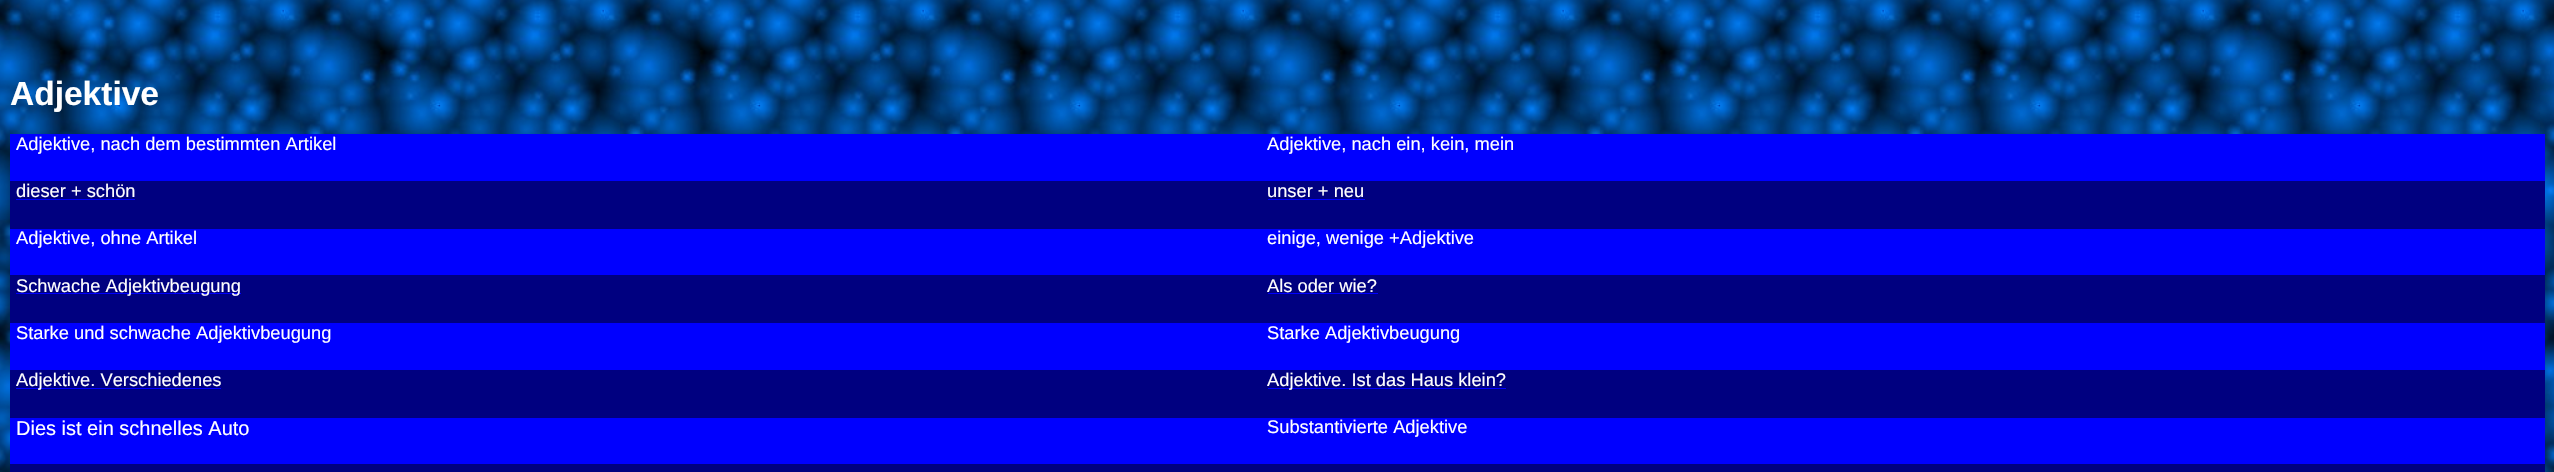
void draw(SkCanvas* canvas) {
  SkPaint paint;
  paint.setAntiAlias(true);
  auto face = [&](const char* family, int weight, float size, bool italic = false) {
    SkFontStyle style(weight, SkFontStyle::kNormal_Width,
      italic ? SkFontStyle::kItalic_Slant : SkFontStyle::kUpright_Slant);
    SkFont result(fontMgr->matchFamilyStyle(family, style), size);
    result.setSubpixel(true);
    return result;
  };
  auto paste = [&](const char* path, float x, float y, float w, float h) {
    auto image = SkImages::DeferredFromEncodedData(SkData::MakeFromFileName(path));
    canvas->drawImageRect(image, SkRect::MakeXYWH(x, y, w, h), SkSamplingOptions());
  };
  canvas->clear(0xffffffff);
  paste("img/1.png", 0, 0, 2554, 472);
  {
    const struct { float x, y, w, h; SkColor color; } items[] = {
      {10, 134, 2535, 330, 0xff0000ff},
      {10, 181, 2535, 48, 0xff000080},
      {16, 199, 119, 1, 0xff0000ff},
      {1268, 199, 97, 1, 0xff0000ff},
      {10, 275, 2535, 48, 0xff000080},
      {16, 293, 225, 1, 0xff0000ff},
      {1268, 293, 110, 1, 0xff0000ff},
      {10, 370, 2535, 48, 0xff000080},
      {16, 388, 205, 1, 0xff0000ff},
      {1268, 388, 238, 1, 0xff0000ff},
      {10, 464, 2535, 8, 0xff000080},
    };
    for (auto [x, y, w, h, color] : items) {
      paint.setColor(color);
      canvas->drawRect(SkRect::MakeXYWH(x, y, w, h), paint);
    }
  }
  auto f0 = face("Liberation Sans", 700, 33.5f);
  paint.setColor(0xffffffff);
  canvas->drawString("Adjektive", 10, 105, f0, paint);
  auto f1 = face("Liberation Sans", 400, 18.3f);
  {
    const struct { const char* s; float x, y; } items[] = {
      {"Adjektive, nach dem bestimmten Artikel", 16, 150},
      {"Adjektive, nach ein, kein, mein", 1267, 150},
      {"dieser + schön", 16, 197},
      {"unser + neu", 1267, 197},
      {"Adjektive, ohne Artikel", 16, 244},
      {"einige, wenige +Adjektive", 1267, 244},
      {"Schwache Adjektivbeugung", 16, 292},
      {"Als oder wie?", 1267, 292},
      {"Starke und schwache Adjektivbeugung", 16, 339},
      {"Starke Adjektivbeugung", 1267, 339},
      {"Adjektive. Verschiedenes", 16, 386},
      {"Adjektive. Ist das Haus klein?", 1267, 386},
    };
    for (auto [s, x, y] : items) {
      canvas->drawString(s, x, y, f1, paint);
    }
  }
  auto f2 = face("Liberation Sans", 400, 20);
  canvas->drawString("Dies ist ein schnelles Auto", 16, 435, f2, paint);
  canvas->drawString("Substantivierte Adjektive", 1267, 433, f1, paint);
}
